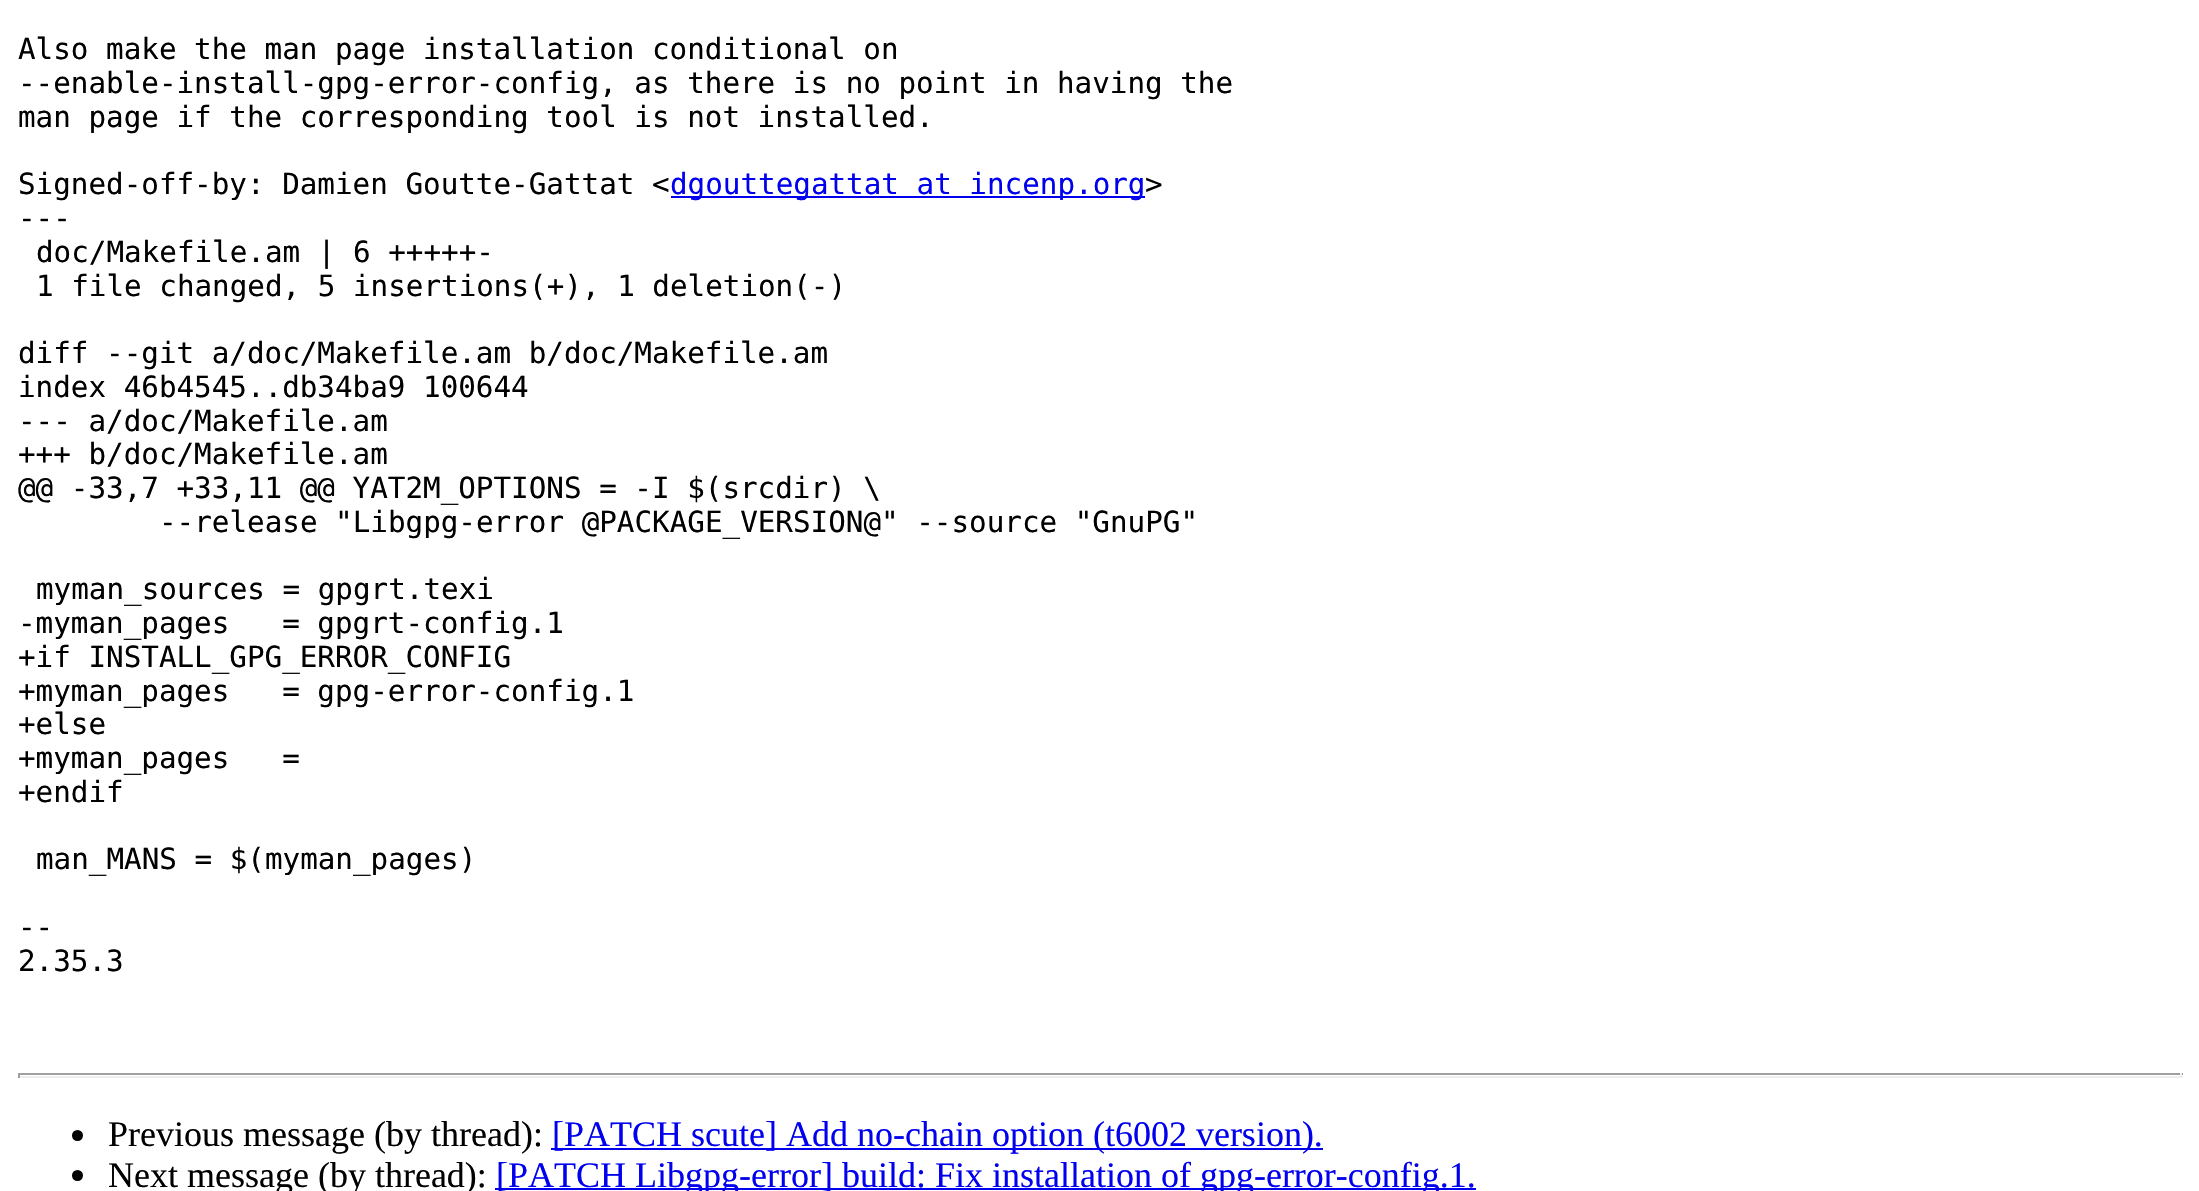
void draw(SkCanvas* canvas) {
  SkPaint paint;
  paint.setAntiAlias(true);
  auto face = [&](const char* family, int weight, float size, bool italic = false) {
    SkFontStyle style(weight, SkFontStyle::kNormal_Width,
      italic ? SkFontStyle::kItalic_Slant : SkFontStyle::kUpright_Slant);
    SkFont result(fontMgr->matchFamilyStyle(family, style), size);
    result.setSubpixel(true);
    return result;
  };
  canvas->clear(0xffffffff);
  {
    const struct { float x, y, w, h; SkColor color; } items[] = {
      {671, 196, 474, 2, 0xff0000ee},
      {18, 1073, 2165, 2, 0xff9f9f9f},
      {2180, 1073, 2, 5, 0xffeeeeee},
      {18, 1076, 2165, 2, 0xffeeeeee},
      {18, 1073, 2, 5, 0xff9f9f9f},
    };
    for (auto [x, y, w, h, color] : items) {
      paint.setColor(color);
      canvas->drawRect(SkRect::MakeXYWH(x, y, w, h), paint);
    }
  }
  paint.setColor(0xff000000);
  canvas->drawCircle(77.5f, 1135.5f, 5.5f, paint);
  paint.setColor(0xff0000ee);
  canvas->drawRect(SkRect::MakeXYWH(551, 1148, 772, 2), paint);
  paint.setColor(0xff000000);
  canvas->drawCircle(77.5f, 1175.5f, 5.5f, paint);
  paint.setColor(0xff0000ee);
  canvas->drawRect(SkRect::MakeXYWH(495, 1188, 981, 2), paint);
  auto f0 = face("DejaVu Sans Mono", 400, 29.25f);
  paint.setColor(0xff000000);
  {
    const struct { const char* s; float x, y; } items[] = {
      {"Also make the man page installation conditional on", 18, 59},
      {"--enable-install-gpg-error-config, as there is no point in having the", 18, 93},
      {"man page if the corresponding tool is not installed.", 18, 127},
      {"Signed-off-by: Damien Goutte-Gattat <", 18, 194},
    };
    for (auto [s, x, y] : items) {
      canvas->drawString(s, x, y, f0, paint);
    }
  }
  paint.setColor(0xff0000ee);
  canvas->drawString("dgouttegattat at incenp.org", 670, 194, f0, paint);
  paint.setColor(0xff000000);
  {
    const struct { const char* s; float x, y; } items[] = {
      {">", 1145, 194},
      {"---", 18, 228},
      {"doc/Makefile.am | 6 +++++-", 36, 262},
      {"1 file changed, 5 insertions(+), 1 deletion(-)", 36, 296},
      {"diff --git a/doc/Makefile.am b/doc/Makefile.am", 18, 363},
      {"index 46b4545..db34ba9 100644", 18, 397},
      {"--- a/doc/Makefile.am", 18, 431},
      {"+++ b/doc/Makefile.am", 18, 464},
      {"@@ -33,7 +33,11 @@ YAT2M_OPTIONS = -I $(srcdir) \\", 18, 498},
      {"--release \"Libgpg-error @PACKAGE_VERSION@\" --source \"GnuPG\"", 159, 532},
      {"myman_sources = gpgrt.texi", 36, 599},
      {"-myman_pages   = gpgrt-config.1", 18, 633},
      {"+if INSTALL_GPG_ERROR_CONFIG", 18, 667},
      {"+myman_pages   = gpg-error-config.1", 18, 701},
      {"+else", 18, 734},
      {"+myman_pages   =", 18, 768},
      {"+endif", 18, 802},
      {"man_MANS = $(myman_pages)", 36, 869},
      {"--", 18, 937},
      {"2.35.3", 18, 971},
    };
    for (auto [s, x, y] : items) {
      canvas->drawString(s, x, y, f0, paint);
    }
  }
  auto f1 = face("Liberation Serif", 400, 36);
  canvas->drawString("Previous message (by thread):", 108, 1146, f1, paint);
  paint.setColor(0xff0000ee);
  canvas->drawString("[PATCH scute] Add no-chain option (t6002 version).", 552, 1146, f1, paint);
  paint.setColor(0xff000000);
  canvas->drawString("Next message (by thread):", 108, 1187, f1, paint);
  paint.setColor(0xff0000ee);
  canvas->drawString("[PATCH Libgpg-error] build: Fix installation of gpg-error-config.1.", 496, 1187, f1, paint);
}
